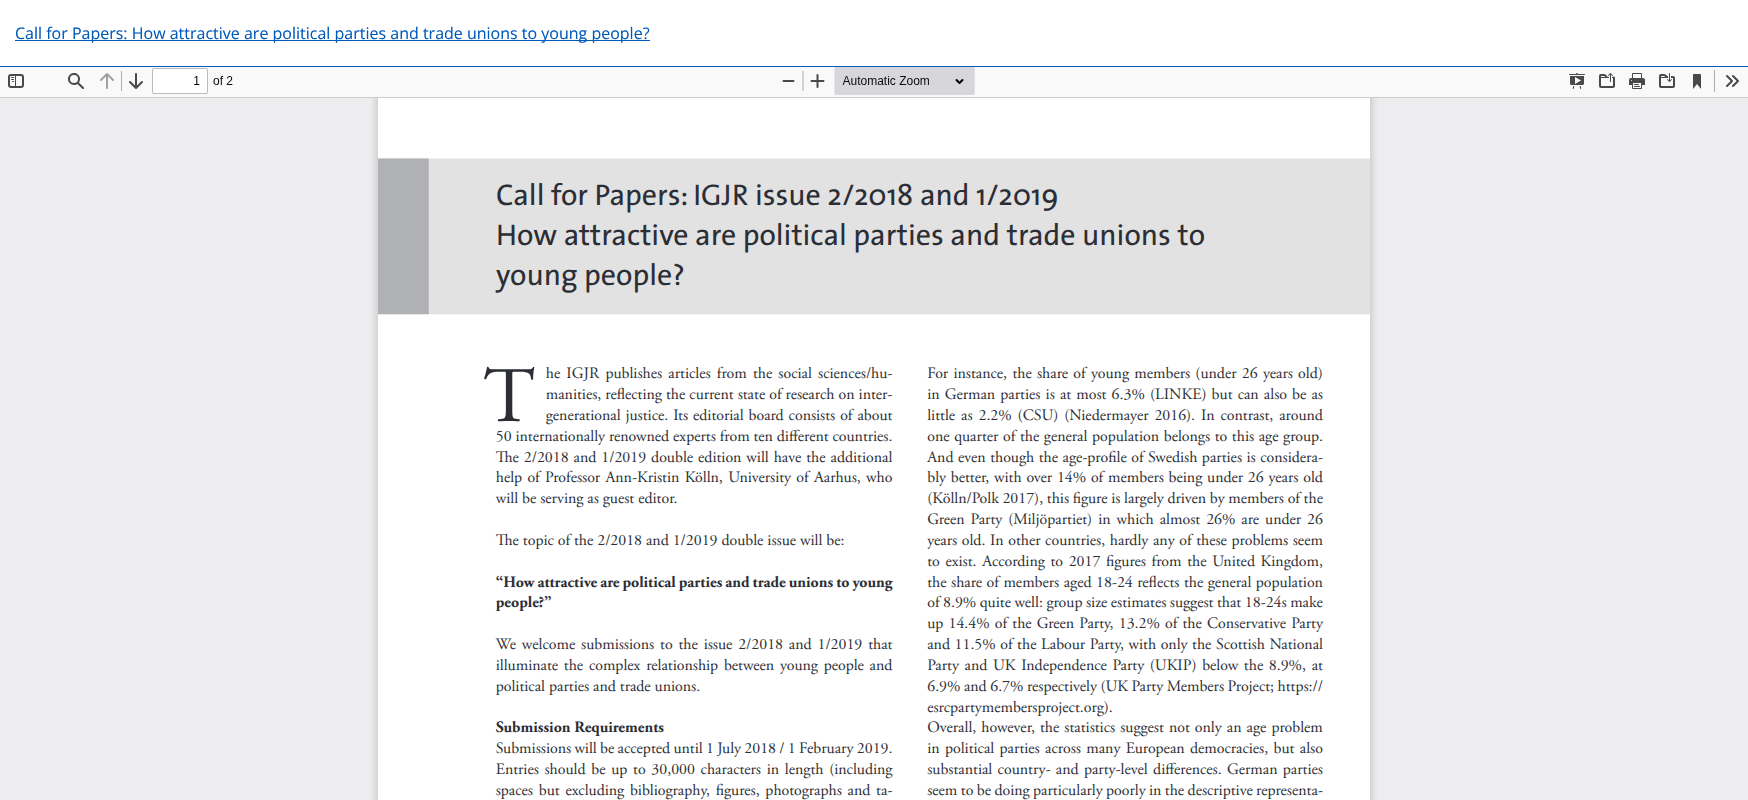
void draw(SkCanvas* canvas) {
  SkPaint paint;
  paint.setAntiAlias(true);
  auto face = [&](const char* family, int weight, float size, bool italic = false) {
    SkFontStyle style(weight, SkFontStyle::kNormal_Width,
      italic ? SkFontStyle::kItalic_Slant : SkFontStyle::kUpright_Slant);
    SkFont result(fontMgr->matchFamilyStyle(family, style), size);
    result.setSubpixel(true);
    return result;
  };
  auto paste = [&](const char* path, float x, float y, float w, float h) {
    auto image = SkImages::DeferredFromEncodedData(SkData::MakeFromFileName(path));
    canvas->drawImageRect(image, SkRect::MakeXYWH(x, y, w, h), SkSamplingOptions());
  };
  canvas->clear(0xffffffff);
  paint.setColor(0xff005abb);
  canvas->drawRect(SkRect::MakeXYWH(0, 66, 1748, 1), paint);
  canvas->drawRect(SkRect::MakeXYWH(15, 40, 635, 1), paint);
  paste("img/1.png", 0, 67, 1748, 733);
  auto f0 = face("Open Sans", 400, 16);
  canvas->drawString("Call for Papers: How attractive are political parties and trade unions to young people?", 15, 39, f0, paint);
}
